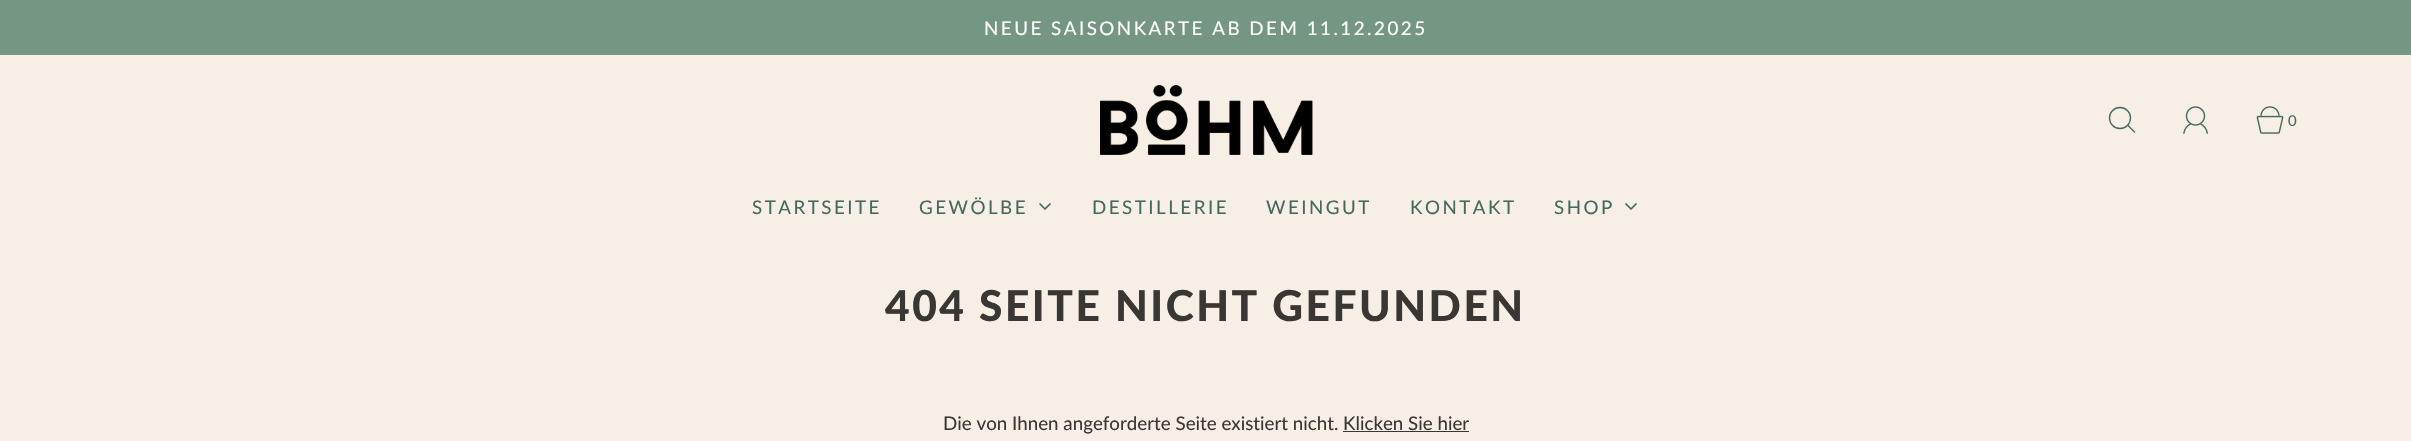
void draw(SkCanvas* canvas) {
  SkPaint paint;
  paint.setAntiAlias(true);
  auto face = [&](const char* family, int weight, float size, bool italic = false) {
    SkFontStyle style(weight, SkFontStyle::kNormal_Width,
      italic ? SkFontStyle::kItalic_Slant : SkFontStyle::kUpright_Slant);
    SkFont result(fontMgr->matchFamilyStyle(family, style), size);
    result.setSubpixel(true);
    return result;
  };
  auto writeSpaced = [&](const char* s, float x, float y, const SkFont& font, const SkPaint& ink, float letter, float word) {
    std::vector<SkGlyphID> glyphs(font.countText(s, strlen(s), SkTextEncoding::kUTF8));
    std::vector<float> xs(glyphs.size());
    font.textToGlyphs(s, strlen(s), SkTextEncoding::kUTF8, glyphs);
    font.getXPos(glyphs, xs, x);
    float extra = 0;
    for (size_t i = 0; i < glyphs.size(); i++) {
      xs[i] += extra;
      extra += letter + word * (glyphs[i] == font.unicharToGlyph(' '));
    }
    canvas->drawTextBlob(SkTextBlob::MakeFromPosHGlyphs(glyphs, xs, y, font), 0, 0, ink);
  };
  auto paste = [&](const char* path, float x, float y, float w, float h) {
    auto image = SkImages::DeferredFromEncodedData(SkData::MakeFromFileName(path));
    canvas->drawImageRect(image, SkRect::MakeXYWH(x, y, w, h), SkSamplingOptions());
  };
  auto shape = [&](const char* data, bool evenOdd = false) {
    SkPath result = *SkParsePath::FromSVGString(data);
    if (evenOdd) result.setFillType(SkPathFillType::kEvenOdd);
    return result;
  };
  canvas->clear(0xfff7eee6);
  paint.setColor(0xff769684);
  canvas->drawRect(SkRect::MakeXYWH(0, 0, 2411, 55), paint);
  paste("img/1.png", 1100, 85, 213, 70);
  paint.setStroke(true);
  paint.setStrokeWidth(1.3f);
  paint.setColor(0xff45685e);
  canvas->drawCircle(2120, 118, 10.5f, paint);
  canvas->drawPath(shape("M2127.5 125L2135 132.5"), paint);
  paste("img/2.png", 2183, 106, 25, 28);
  paste("img/3.png", 2256, 106, 28, 28);
  paint.setStrokeWidth(1.7f);
  paint.setStrokeCap(SkPaint::kRound_Cap);
  paint.setStrokeJoin(SkPaint::kRound_Join);
  canvas->drawPath(shape("M1040 204L1045 209L1050 204"), paint);
  canvas->drawPath(shape("M1626 204L1631 209L1636 204"), paint);
  paint.setStroke(false);
  paint.setColor(0xff393634);
  canvas->drawRect(SkRect::MakeXYWH(1343, 431, 126, 1), paint);
  auto f0 = face("Lato", 400, 18.75f);
  paint.setColor(0xffffffff);
  writeSpaced("NEUE SAISONKARTE AB DEM 11.12.2025", 984, 35, f0, paint, 2.5f, 0);
  auto f1 = face("Lato", 400, 15);
  paint.setColor(0xff45685e);
  canvas->drawString("0", 2288, 126, f1, paint);
  {
    const struct { const char* s; float x, y; } items[] = {
      {"STARTSEITE", 752, 214},
      {"GEWÖLBE", 919, 214},
      {"DESTILLERIE", 1092, 214},
      {"WEINGUT", 1266, 214},
      {"KONTAKT", 1410, 214},
      {"SHOP", 1554, 214},
    };
    for (auto [s, x, y] : items) {
      writeSpaced(s, x, y, f0, paint, 2.5f, 0);
    }
  }
  auto f2 = face("Lato", 900, 42.5f);
  paint.setColor(0xff393634);
  writeSpaced("404 SEITE NICHT GEFUNDEN", 885, 321, f2, paint, 2.5f, 0);
  canvas->drawString("Die von Ihnen angeforderte Seite existiert nicht. Klicken Sie hier", 943, 430, f0, paint);
}
